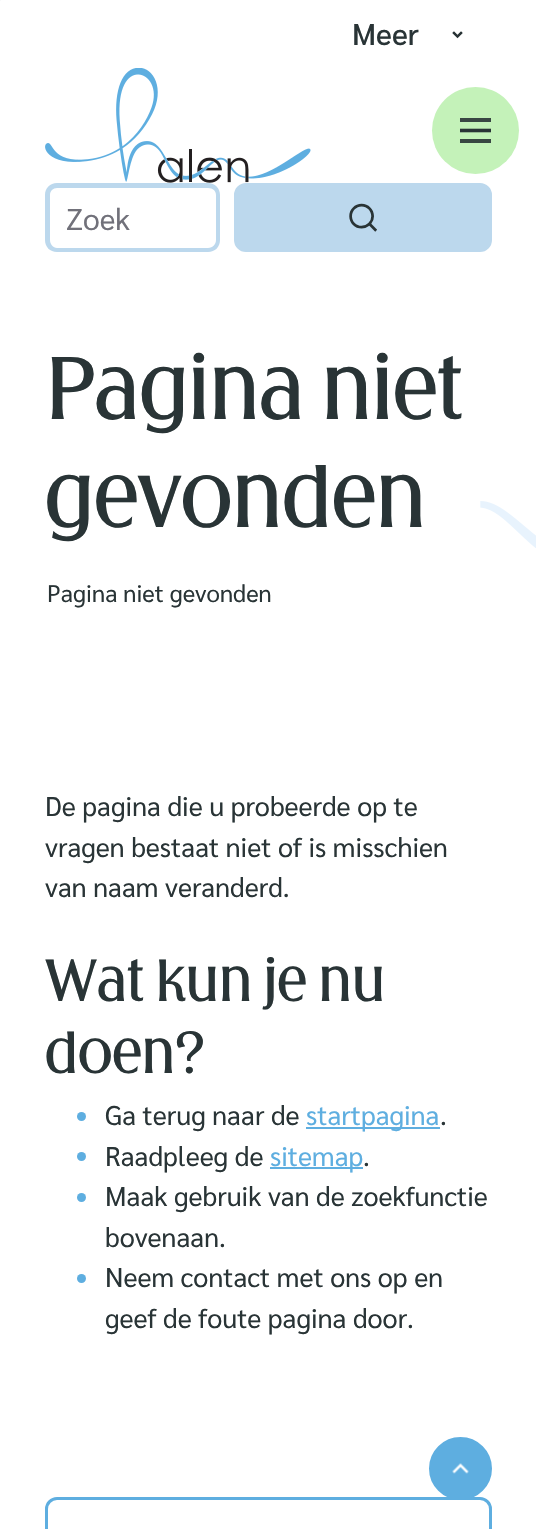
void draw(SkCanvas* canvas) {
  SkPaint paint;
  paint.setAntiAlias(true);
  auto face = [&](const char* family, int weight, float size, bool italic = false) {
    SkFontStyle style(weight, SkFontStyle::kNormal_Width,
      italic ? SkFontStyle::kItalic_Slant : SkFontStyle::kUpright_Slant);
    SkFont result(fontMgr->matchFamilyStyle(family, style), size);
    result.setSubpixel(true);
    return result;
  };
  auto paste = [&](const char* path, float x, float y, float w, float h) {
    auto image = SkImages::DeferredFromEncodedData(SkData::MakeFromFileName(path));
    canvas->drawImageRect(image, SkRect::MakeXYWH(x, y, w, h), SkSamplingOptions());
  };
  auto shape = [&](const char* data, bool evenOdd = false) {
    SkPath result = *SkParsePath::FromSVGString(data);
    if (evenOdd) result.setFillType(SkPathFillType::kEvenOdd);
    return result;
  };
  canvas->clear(0xffffffff);
  paint.setColor(0xfff8f9fa);
  canvas->drawRect(SkRect::MakeXYWH(0, 0, 1, 1), paint);
  paste("img/1.png", 452, 31, 11, 8);
  paste("img/2.png", 45, 68, 266, 115);
  paint.setColor(0xffc4f2b9);
  canvas->drawCircle(475.5f, 130.5f, 43.5f, paint);
  paint.setColor(0xff394743);
  canvas->drawRect(SkRect::MakeXYWH(460, 118, 31, 4), paint);
  paint.setStroke(true);
  paint.setStrokeWidth(3.6f);
  paint.setColor(0xff293436);
  canvas->drawPath(shape("M460 130.5H491"), paint);
  paint.setStroke(false);
  paint.setColor(0xff394743);
  canvas->drawRect(SkRect::MakeXYWH(460, 139, 31, 4), paint);
  paint.setColor(0xffbcd8ed);
  canvas->drawPath(shape("M57 183H146V252H57C50 252 45 247 45 240V195C45 188 50 183 57 183ZM57 188H146V248H57C53 248 50 244 50 240V195C50 191 53 188 57 188Z", true), paint);
  canvas->drawPath(shape("M146 183H208C215 183 220 188 220 195V240C220 247 215 252 208 252H146ZM146 188H208C213 188 216 191 216 195V240C216 244 213 248 208 248H146Z", true), paint);
  canvas->drawRoundRect(SkRect::MakeXYWH(236.5f, 185.5f, 253, 64), 9.5f, 9.5f, paint);
  paint.setStroke(true);
  paint.setStrokeWidth(5);
  canvas->drawRoundRect(SkRect::MakeXYWH(236.5f, 185.5f, 253, 64), 9.5f, 9.5f, paint);
  paste("img/3.png", 349, 203, 28, 29);
  paste("img/4.png", 480, 501, 56, 47);
  paint.setStroke(false);
  paint.setColor(0xff5eaee0);
  canvas->drawCircle(81.5f, 1116.5f, 4.5f, paint);
  canvas->drawRect(SkRect::MakeXYWH(306, 1127, 134, 2), paint);
  canvas->drawCircle(81.5f, 1156.5f, 4.5f, paint);
  canvas->drawRect(SkRect::MakeXYWH(270, 1167, 93, 2), paint);
  canvas->drawCircle(81.5f, 1197.5f, 4.5f, paint);
  canvas->drawCircle(81.5f, 1278.5f, 4.5f, paint);
  paint.setStroke(true);
  paint.setStrokeWidth(3);
  canvas->drawRoundRect(SkRect::MakeXYWH(46.5f, 1498.5f, 444, 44), 10.5f, 10.5f, paint);
  paint.setStroke(false);
  canvas->drawCircle(460.5f, 1468.5f, 30.5f, paint);
  paint.setStroke(true);
  paint.setStrokeWidth(2);
  canvas->drawCircle(460.5f, 1468.5f, 30.5f, paint);
  paste("img/5.png", 452, 1463, 17, 11);
  auto f0 = face("Sarabun", 500, 30);
  paint.setStroke(false);
  paint.setColor(0xff293436);
  canvas->drawString("Meer", 352, 45, f0, paint);
  auto f1 = face("Sarabun", 400, 30);
  paint.setColor(0xff71717a);
  canvas->drawString("Zoek", 66, 230, f1, paint);
  auto f2 = face("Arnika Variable", 400, 90);
  paint.setColor(0xff293436);
  canvas->drawString("Pagina niet", 45, 419, f2, paint);
  canvas->drawString("gevonden", 45, 527, f2, paint);
  auto f3 = face("Sarabun", 400, 24);
  canvas->drawString("Pagina niet gevonden", 47, 602, f3, paint);
  auto f4 = face("Sarabun", 400, 27);
  {
    const struct { const char* s; float x, y; } items[] = {
      {"De pagina die u probeerde op te", 45, 816},
      {"vragen bestaat niet of is misschien", 45, 857},
      {"van naam veranderd.", 45, 897},
    };
    for (auto [s, x, y] : items) {
      canvas->drawString(s, x, y, f4, paint);
    }
  }
  auto f5 = face("Arnika Variable", 400, 60);
  canvas->drawString("Wat kun je nu", 45, 1001, f5, paint);
  canvas->drawString("doen?", 45, 1073, f5, paint);
  canvas->drawString("Ga terug naar de", 105, 1125, f4, paint);
  paint.setColor(0xff5eaee0);
  canvas->drawString("startpagina", 306, 1125, f4, paint);
  paint.setColor(0xff293436);
  canvas->drawString(".", 440, 1125, f4, paint);
  canvas->drawString("Raadpleeg de", 105, 1166, f4, paint);
  paint.setColor(0xff5eaee0);
  canvas->drawString("sitemap", 270, 1166, f4, paint);
  paint.setColor(0xff293436);
  {
    const struct { const char* s; float x, y; } items[] = {
      {".", 363, 1166},
      {"Maak gebruik van de zoekfunctie", 105, 1206},
      {"bovenaan.", 105, 1247},
      {"Neem contact met ons op en", 105, 1287},
      {"geef de foute pagina door.", 105, 1328},
    };
    for (auto [s, x, y] : items) {
      canvas->drawString(s, x, y, f4, paint);
    }
  }
}
